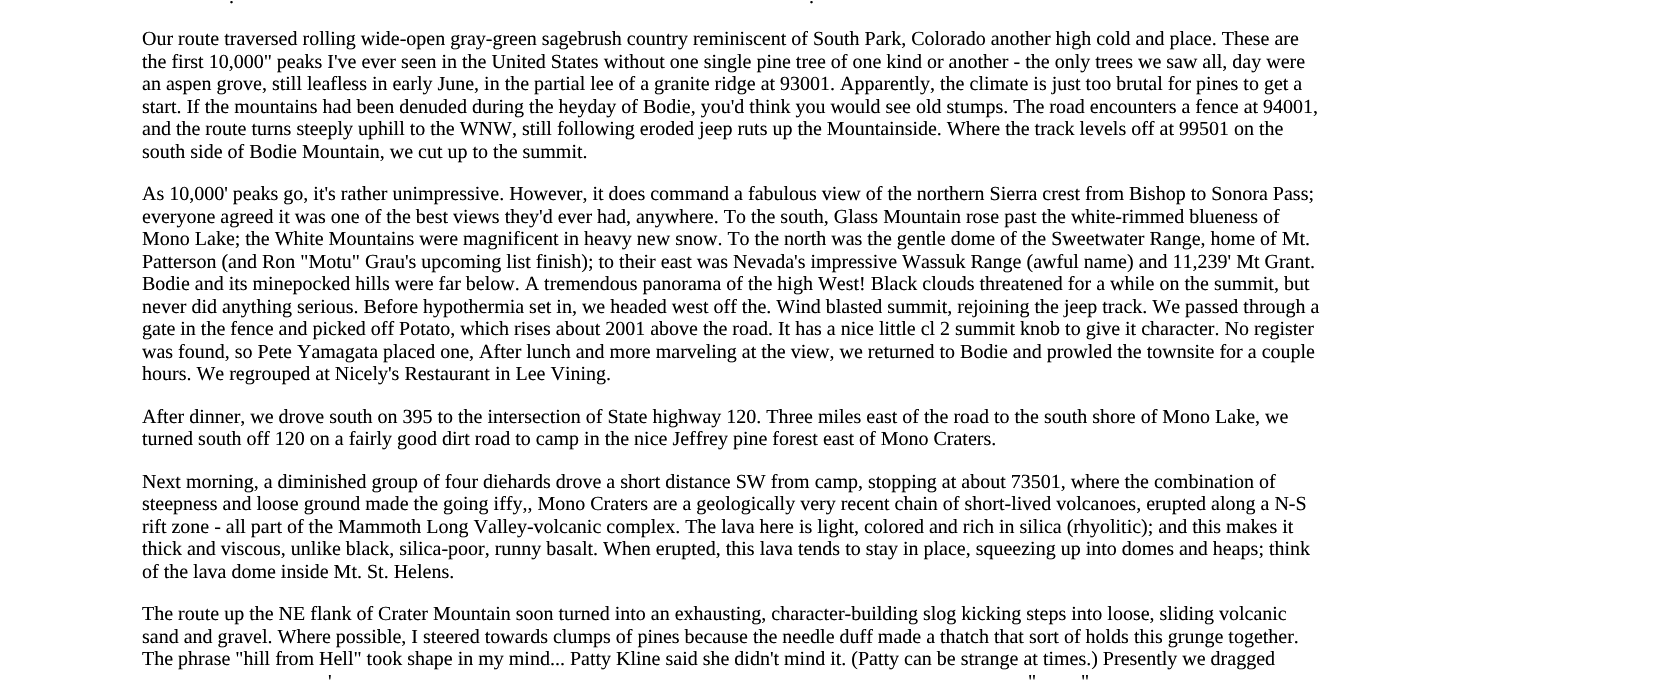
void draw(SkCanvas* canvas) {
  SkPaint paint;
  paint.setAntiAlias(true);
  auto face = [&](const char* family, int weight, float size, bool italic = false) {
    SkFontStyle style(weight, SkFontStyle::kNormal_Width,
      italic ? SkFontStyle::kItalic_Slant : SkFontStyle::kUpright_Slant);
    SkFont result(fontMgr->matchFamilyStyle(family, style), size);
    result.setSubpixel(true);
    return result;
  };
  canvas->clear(0xffffffff);
  auto f0 = face("Liberation Serif", 400, 20);
  paint.setColor(0xff000000);
  {
    const struct { const char* s; float x, y; } items[] = {
      {".", 229, 3},
      {".", 809, 3},
      {"Our route traversed rolling wide-open gray-green sagebrush country reminiscent of South Park, Colorado another high cold and place. These are", 142, 45},
      {"the first 10,000\" peaks I've ever seen in the United States without one single pine tree of one kind or another - the only trees we saw all, day were", 142, 68},
      {"an aspen grove, still leafless in early June, in the partial lee of a granite ridge at 93001. Apparently, the climate is just too brutal for pines to get a", 142, 90},
      {"start. If the mountains had been denuded during the heyday of Bodie, you'd think you would see old stumps. The road encounters a fence at 94001,", 142, 113},
      {"and the route turns steeply uphill to the WNW, still following eroded jeep ruts up the Mountainside. Where the track levels off at 99501 on the", 142, 135},
      {"south side of Bodie Mountain, we cut up to the summit.", 142, 158},
      {"As 10,000' peaks go, it's rather unimpressive. However, it does command a fabulous view of the northern Sierra crest from Bishop to Sonora Pass;", 142, 200},
      {"everyone agreed it was one of the best views they'd ever had, anywhere. To the south, Glass Mountain rose past the white-rimmed blueness of", 142, 223},
      {"Mono Lake; the White Mountains were magnificent in heavy new snow. To the north was the gentle dome of the Sweetwater Range, home of Mt.", 142, 245},
      {"Patterson (and Ron \"Motu\" Grau's upcoming list finish); to their east was Nevada's impressive Wassuk Range (awful name) and 11,239' Mt Grant.", 142, 268},
      {"Bodie and its minepocked hills were far below. A tremendous panorama of the high West! Black clouds threatened for a while on the summit, but", 142, 290},
      {"never did anything serious. Before hypothermia set in, we headed west off the. Wind blasted summit, rejoining the jeep track. We passed through a", 142, 313},
      {"gate in the fence and picked off Potato, which rises about 2001 above the road. It has a nice little cl 2 summit knob to give it character. No register", 142, 335},
      {"was found, so Pete Yamagata placed one, After lunch and more marveling at the view, we returned to Bodie and prowled the townsite for a couple", 142, 358},
      {"hours. We regrouped at Nicely's Restaurant in Lee Vining.", 142, 380},
      {"After dinner, we drove south on 395 to the intersection of State highway 120. Three miles east of the road to the south shore of Mono Lake, we", 142, 423},
      {"turned south off 120 on a fairly good dirt road to camp in the nice Jeffrey pine forest east of Mono Craters.", 142, 445},
      {"Next morning, a diminished group of four diehards drove a short distance SW from camp, stopping at about 73501, where the combination of", 142, 488},
      {"steepness and loose ground made the going iffy,, Mono Craters are a geologically very recent chain of short-lived volcanoes, erupted along a N-S", 142, 510},
      {"rift zone - all part of the Mammoth Long Valley-volcanic complex. The lava here is light, colored and rich in silica (rhyolitic); and this makes it", 142, 533},
      {"thick and viscous, unlike black, silica-poor, runny basalt. When erupted, this lava tends to stay in place, squeezing up into domes and heaps; think", 142, 555},
      {"of the lava dome inside Mt. St. Helens.", 142, 578},
      {"The route up the NE flank of Crater Mountain soon turned into an exhausting, character-building slog kicking steps into loose, sliding volcanic", 142, 620},
      {"sand and gravel. Where possible, I steered towards clumps of pines because the needle duff made a thatch that sort of holds this grunge together.", 142, 643},
      {"The phrase \"hill from Hell\" took shape in my mind... Patty Kline said she didn't mind it. (Patty can be strange at times.) Presently we dragged", 142, 665},
      {"'", 328, 688},
      {"\"", 1028, 688},
      {"\"", 1081, 688},
    };
    for (auto [s, x, y] : items) {
      canvas->drawString(s, x, y, f0, paint);
    }
  }
}
